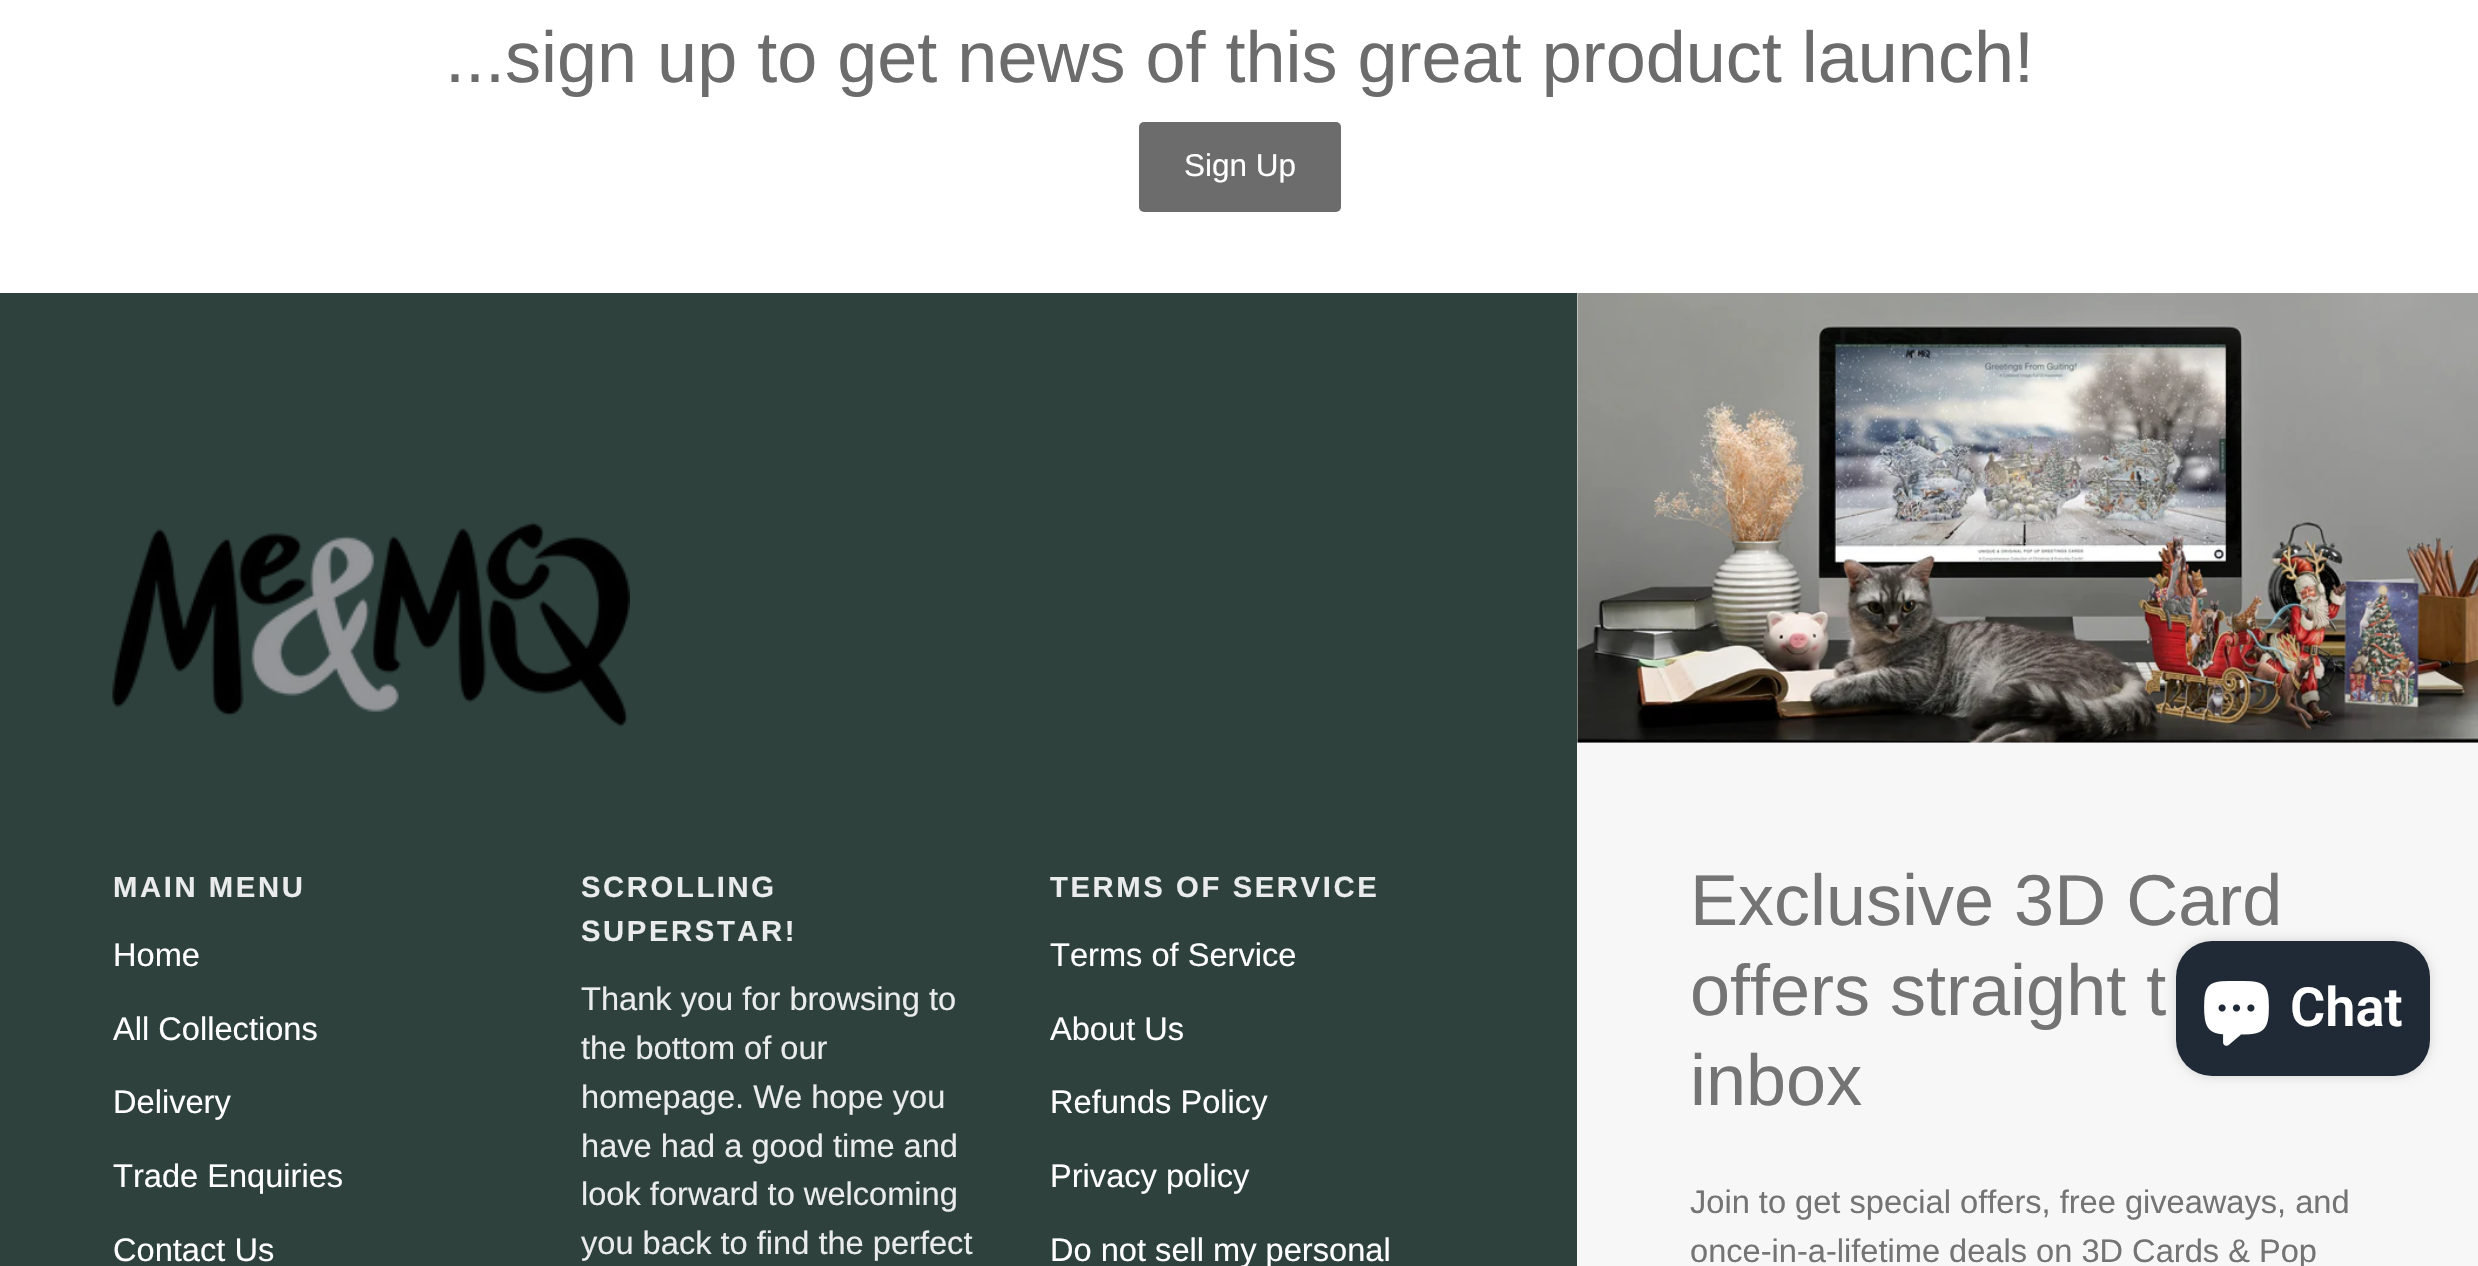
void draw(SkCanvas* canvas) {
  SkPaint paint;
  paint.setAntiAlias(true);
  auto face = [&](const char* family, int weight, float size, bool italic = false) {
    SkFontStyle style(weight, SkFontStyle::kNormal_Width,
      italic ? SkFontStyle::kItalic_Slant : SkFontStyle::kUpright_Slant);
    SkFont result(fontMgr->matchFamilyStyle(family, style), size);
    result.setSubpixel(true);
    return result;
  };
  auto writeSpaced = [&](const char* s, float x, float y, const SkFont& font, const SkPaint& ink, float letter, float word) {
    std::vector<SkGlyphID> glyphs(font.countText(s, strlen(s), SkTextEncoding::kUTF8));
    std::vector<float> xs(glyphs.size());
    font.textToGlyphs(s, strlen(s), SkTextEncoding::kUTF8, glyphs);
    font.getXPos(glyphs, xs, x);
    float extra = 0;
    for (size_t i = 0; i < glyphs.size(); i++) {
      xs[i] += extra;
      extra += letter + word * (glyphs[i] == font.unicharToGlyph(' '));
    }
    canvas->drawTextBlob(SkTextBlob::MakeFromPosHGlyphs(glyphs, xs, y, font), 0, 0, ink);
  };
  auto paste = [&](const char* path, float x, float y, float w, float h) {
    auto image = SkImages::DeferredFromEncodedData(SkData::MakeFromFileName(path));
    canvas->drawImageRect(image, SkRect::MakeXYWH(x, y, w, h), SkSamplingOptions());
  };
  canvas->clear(0xffffffff);
  paint.setColor(0xff6d6c6c);
  canvas->drawRoundRect(SkRect::MakeXYWH(1139, 122, 202, 90), 5, 5, paint);
  paint.setColor(0xff2e413d);
  canvas->drawRect(SkRect::MakeXYWH(0, 293, 1577, 973), paint);
  paste("img/1.png", 112, 522, 518, 205);
  paint.setColor(0xfff7f7f7);
  canvas->drawRect(SkRect::MakeXYWH(1577, 293, 901, 973), paint);
  paste("img/2.png", 1577, 293, 901, 450);
  paint.setColor(0x26000000);
  paint.setMaskFilter(SkMaskFilter::MakeBlur(kNormal_SkBlurStyle, 5.5f));
  canvas->drawRoundRect(SkRect::MakeXYWH(2176, 941, 254, 135), 36, 36, paint);
  paint.setMaskFilter(nullptr);
  paint.setColor(0xff202a36);
  canvas->drawRoundRect(SkRect::MakeXYWH(2176, 941, 254, 135), 36, 36, paint);
  paste("img/3.png", 2204, 981, 65, 65);
  auto f0 = face("Liberation Sans", 400, 72);
  paint.setColor(0xff6d6c6c);
  canvas->drawString("...sign up to get news of this great product launch!", 445, 82, f0, paint);
  auto f1 = face("Liberation Sans", 400, 31.5f);
  paint.setColor(0xffffffff);
  canvas->drawString("Sign Up", 1184, 176, f1, paint);
  auto f2 = face("Liberation Sans", 700, 29.25f);
  paint.setColor(0xffeaecec);
  writeSpaced("MAIN MENU", 113, 897, f2, paint, 2.6f, 0);
  auto f3 = face("Liberation Sans", 400, 32.6f);
  paint.setColor(0xffffffff);
  {
    const struct { const char* s; float x, y; } items[] = {
      {"Home", 113, 966},
      {"All Collections", 113, 1040},
      {"Delivery", 113, 1113},
      {"Trade Enquiries", 113, 1187},
      {"Contact Us", 113, 1261},
    };
    for (auto [s, x, y] : items) {
      canvas->drawString(s, x, y, f3, paint);
    }
  }
  paint.setColor(0xffeaecec);
  writeSpaced("SCROLLING", 581, 897, f2, paint, 2.6f, 0);
  writeSpaced("SUPERSTAR!", 581, 941, f2, paint, 2.6f, 0);
  {
    const struct { const char* s; float x, y; } items[] = {
      {"Thank you for browsing to", 581, 1010},
      {"the bottom of our", 581, 1059},
      {"homepage. We hope you", 581, 1108},
      {"have had a good time and", 581, 1157},
      {"look forward to welcoming", 581, 1205},
      {"you back to find the perfect", 581, 1254},
    };
    for (auto [s, x, y] : items) {
      canvas->drawString(s, x, y, f3, paint);
    }
  }
  writeSpaced("TERMS OF SERVICE", 1050, 897, f2, paint, 2.6f, 0);
  paint.setColor(0xffffffff);
  {
    const struct { const char* s; float x, y; } items[] = {
      {"Terms of Service", 1050, 966},
      {"About Us", 1050, 1040},
      {"Refunds Policy", 1050, 1113},
      {"Privacy policy", 1050, 1187},
      {"Do not sell my personal", 1050, 1261},
    };
    for (auto [s, x, y] : items) {
      canvas->drawString(s, x, y, f3, paint);
    }
  }
  paint.setColor(0xff747474);
  {
    const struct { const char* s; float x, y; } items[] = {
      {"Exclusive 3D Card", 1690, 925},
      {"offers straight t", 1690, 1015},
      {"inbox", 1690, 1105},
    };
    for (auto [s, x, y] : items) {
      canvas->drawString(s, x, y, f0, paint);
    }
  }
  canvas->drawString("Join to get special offers, free giveaways, and", 1690, 1213, f3, paint);
  canvas->drawString("once-in-a-lifetime deals on 3D Cards & Pop", 1690, 1262, f3, paint);
  auto f4 = face("Roboto", 600, 54);
  paint.setColor(0xffffffff);
  canvas->drawString("Chat", 2290, 1026, f4, paint);
}
